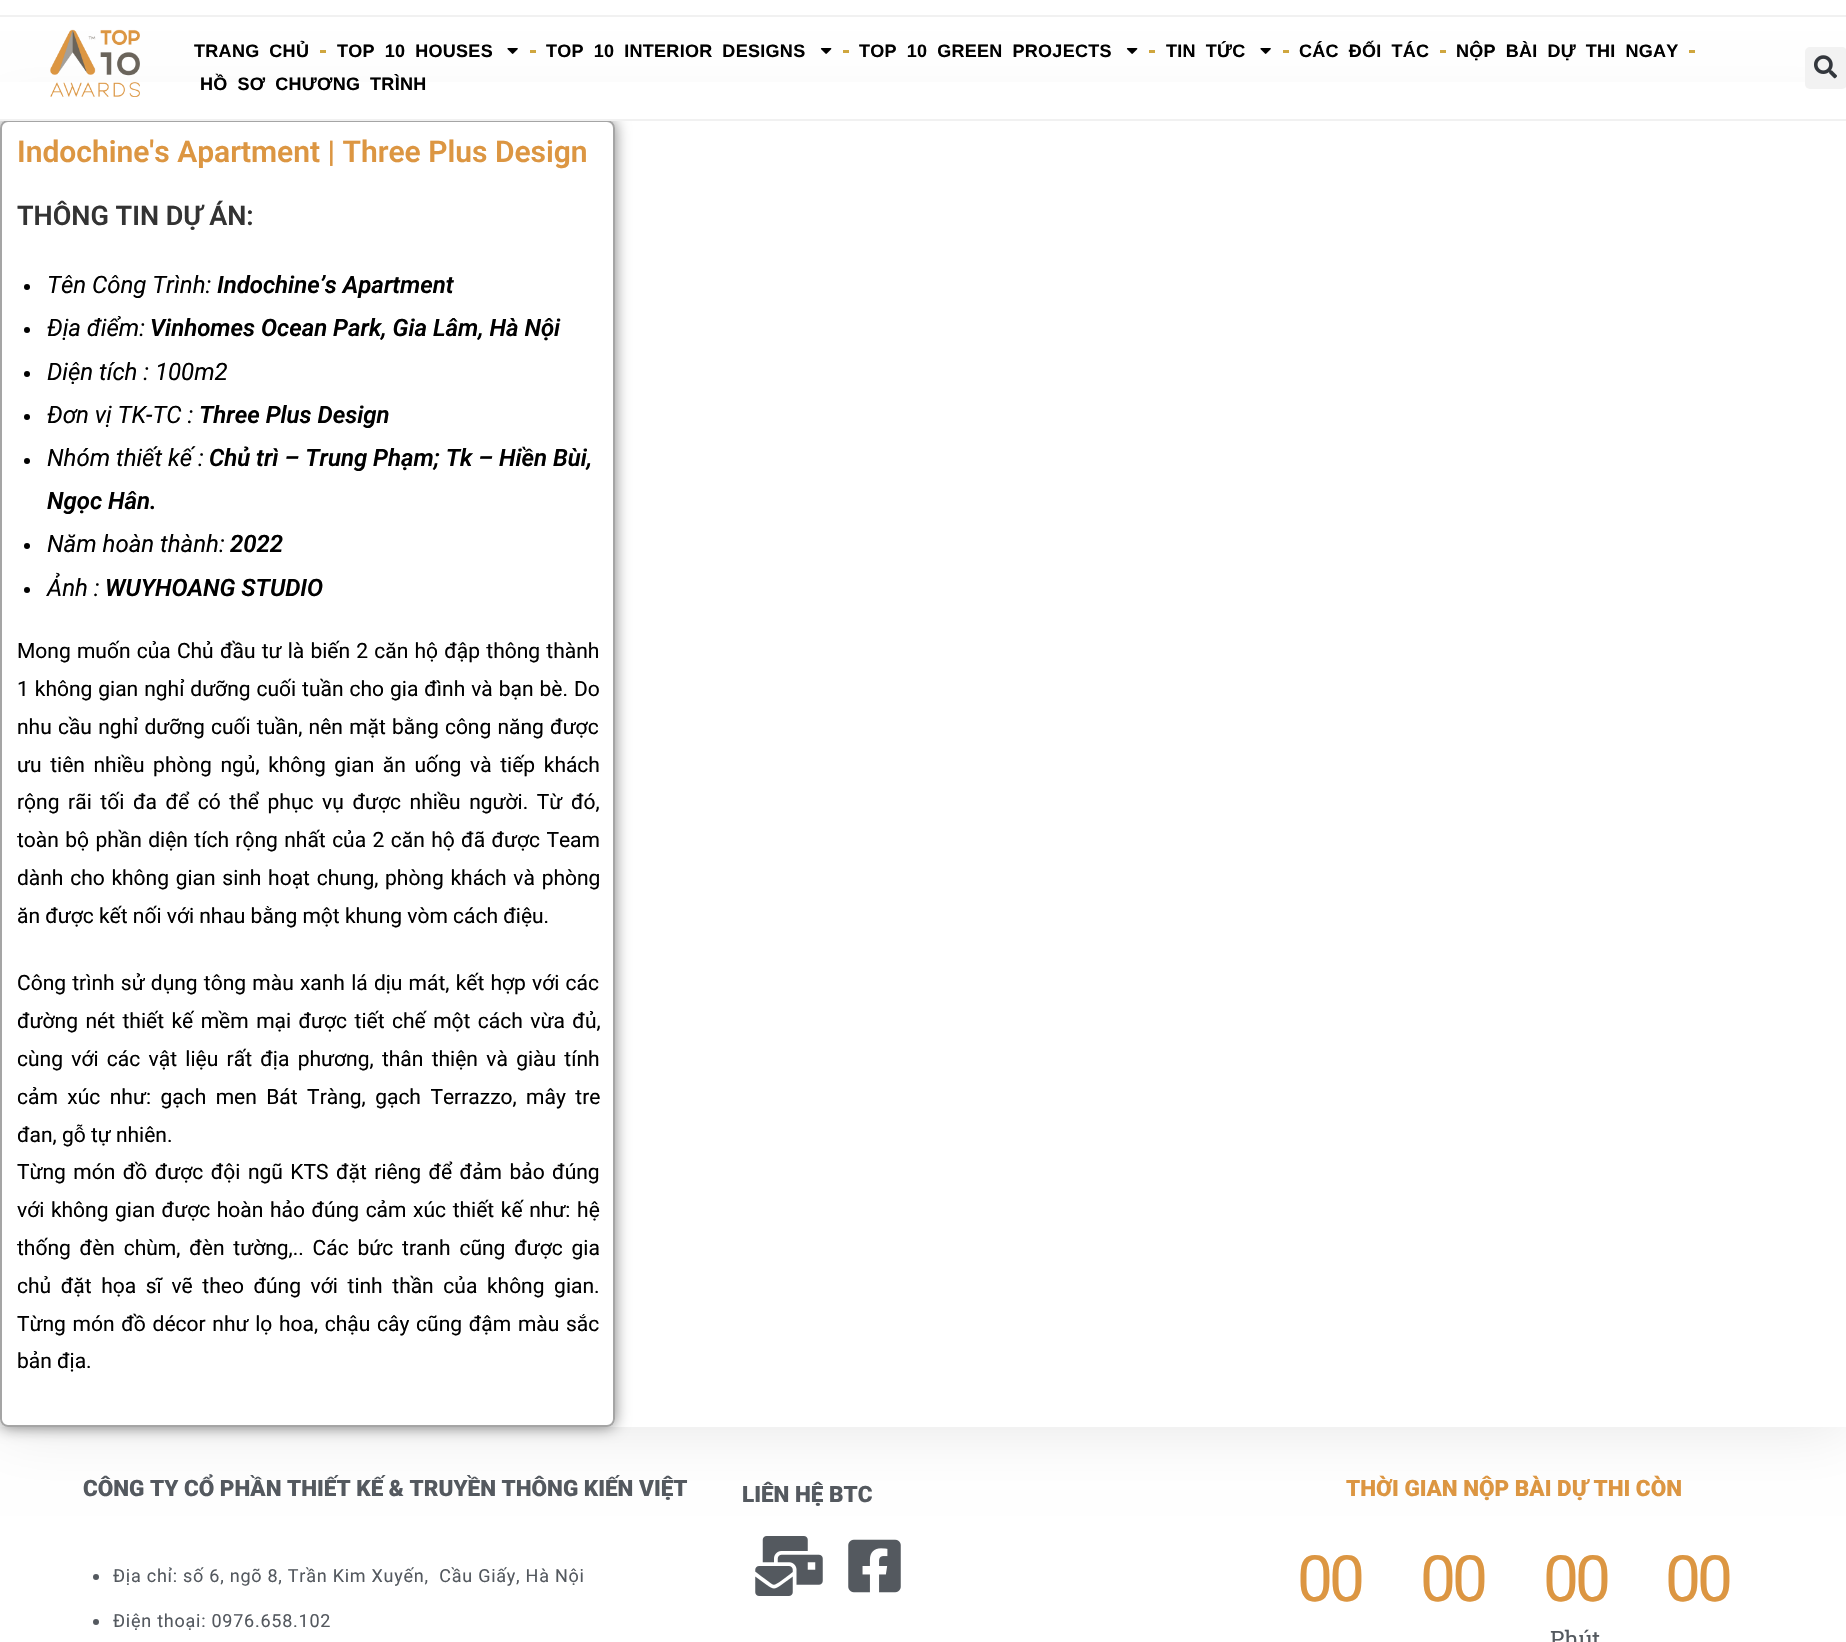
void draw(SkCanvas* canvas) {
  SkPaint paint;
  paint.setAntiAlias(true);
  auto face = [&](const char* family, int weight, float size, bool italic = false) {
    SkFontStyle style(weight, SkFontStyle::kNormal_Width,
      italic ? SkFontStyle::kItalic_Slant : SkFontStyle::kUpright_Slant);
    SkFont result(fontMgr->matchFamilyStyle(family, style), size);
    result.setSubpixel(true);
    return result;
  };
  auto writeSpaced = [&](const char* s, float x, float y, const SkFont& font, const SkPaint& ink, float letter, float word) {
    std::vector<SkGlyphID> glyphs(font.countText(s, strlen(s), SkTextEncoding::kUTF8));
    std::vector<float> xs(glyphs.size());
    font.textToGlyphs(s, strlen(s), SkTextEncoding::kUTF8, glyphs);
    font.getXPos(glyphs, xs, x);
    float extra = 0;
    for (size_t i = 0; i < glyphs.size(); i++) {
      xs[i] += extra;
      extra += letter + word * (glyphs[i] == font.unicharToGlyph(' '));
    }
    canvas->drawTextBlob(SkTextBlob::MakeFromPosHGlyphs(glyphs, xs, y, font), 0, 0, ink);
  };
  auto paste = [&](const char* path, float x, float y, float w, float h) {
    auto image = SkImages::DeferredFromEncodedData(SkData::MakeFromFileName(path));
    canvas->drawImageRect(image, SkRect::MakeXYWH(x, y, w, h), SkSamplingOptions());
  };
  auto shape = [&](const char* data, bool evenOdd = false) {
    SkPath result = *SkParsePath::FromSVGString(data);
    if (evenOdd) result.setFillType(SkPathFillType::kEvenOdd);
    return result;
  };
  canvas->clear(0xffffffff);
  paint.setColor(0xfff1f1f1);
  canvas->drawRect(SkRect::MakeXYWH(0, 15, 1846, 2), paint);
  paint.setColor(0x1a000000);
  paint.setMaskFilter(SkMaskFilter::MakeBlur(kNormal_SkBlurStyle, 30));
  canvas->drawRect(SkRect::MakeXYWH(0, 120, 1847, 1307), paint);
  paint.setMaskFilter(nullptr);
  paint.setColor(0xffffffff);
  canvas->drawRect(SkRect::MakeXYWH(0, 121, 1846, 1306), paint);
  canvas->save();
  canvas->clipPath(shape("M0 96H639V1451H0ZM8 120H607C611.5 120 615 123.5 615 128V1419C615 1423.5 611.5 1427 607 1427H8C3.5 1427 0 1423.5 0 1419V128C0 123.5 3.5 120 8 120Z", true), true);
  paint.setColor(0x80000000);
  paint.setMaskFilter(SkMaskFilter::MakeBlur(kNormal_SkBlurStyle, 7.5f));
  canvas->drawRoundRect(SkRect::MakeXYWH(0, 120, 615, 1307), 8, 8, paint);
  paint.setMaskFilter(nullptr);
  canvas->restore();
  paint.setColor(0xffffffff);
  canvas->drawRect(SkRect::MakeXYWH(0, 82, 1846, 37), paint);
  paint.setStroke(true);
  paint.setStrokeWidth(2);
  paint.setColor(0xad7a7a7a);
  canvas->drawRoundRect(SkRect::MakeXYWH(1, 121, 613, 1305), 7, 7, paint);
  paint.setStroke(false);
  paint.setColor(0xfff1f1f1);
  canvas->drawRect(SkRect::MakeXYWH(0, 119, 1846, 2), paint);
  paste("img/1.png", 50, 29, 90, 68);
  paint.setColor(0xffcfa63e);
  canvas->drawRect(SkRect::MakeXYWH(320, 50, 6, 3), paint);
  paste("img/2.png", 507, 48, 11, 6);
  canvas->drawRect(SkRect::MakeXYWH(530, 50, 6, 3), paint);
  paste("img/3.png", 820, 48, 12, 6);
  canvas->drawRect(SkRect::MakeXYWH(843, 50, 6, 3), paint);
  paste("img/3.png", 1126, 48, 12, 6);
  canvas->drawRect(SkRect::MakeXYWH(1149, 50, 6, 3), paint);
  paste("img/2.png", 1260, 48, 11, 6);
  {
    const struct { float x, y, w, h; SkColor color; } items[] = {
      {1283, 50, 6, 3, 0xffcfa63e},
      {1440, 50, 6, 3, 0xffcfa63e},
      {1689, 50, 6, 3, 0xffcfa63e},
    };
    for (auto [x, y, w, h, color] : items) {
      paint.setColor(color);
      canvas->drawRect(SkRect::MakeXYWH(x, y, w, h), paint);
    }
  }
  paint.setColor(0xfff2f2f2);
  canvas->drawRoundRect(SkRect::MakeXYWH(1805, 47, 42, 42), 5, 5, paint);
  paste("img/4.png", 1814, 55, 23, 24);
  paint.setColor(0xff000000);
  canvas->drawCircle(27, 287, 3, paint);
  canvas->drawCircle(27, 330, 3, paint);
  canvas->drawCircle(27, 374, 3, paint);
  canvas->drawCircle(27, 417, 3, paint);
  canvas->drawCircle(27, 461, 3, paint);
  canvas->drawCircle(27, 546, 3, paint);
  canvas->drawCircle(27, 590, 3, paint);
  paint.setColor(0xff54595f);
  canvas->drawCircle(96, 1577, 3, paint);
  canvas->drawCircle(96, 1622, 3, paint);
  paste("img/5.png", 755, 1536, 68, 60);
  paste("img/6.png", 848, 1539, 53, 54);
  auto f0 = face("Liberation Sans", 700, 18);
  paint.setColor(0xff000000);
  {
    const struct { const char* s; float x, y; } items[] = {
      {"TRANG CHỦ", 194, 57},
      {"TOP 10 HOUSES", 337, 57},
      {"TOP 10 INTERIOR DESIGNS", 546, 57},
      {"TOP 10 GREEN PROJECTS", 859, 57},
      {"TIN TỨC", 1166, 57},
      {"CÁC ĐỐI TÁC", 1299, 57},
      {"NỘP BÀI DỰ THI NGAY", 1456, 57},
      {"HỒ SƠ CHƯƠNG TRÌNH", 200, 90},
    };
    for (auto [s, x, y] : items) {
      writeSpaced(s, x, y, f0, paint, 0.3f, 4.5f);
    }
  }
  auto f1 = face("Roboto", 600, 30);
  paint.setColor(0xffdc9642);
  canvas->drawString("Indochine's Apartment | Three Plus Design", 17, 162, f1, paint);
  auto f2 = face("Roboto", 600, 27);
  paint.setColor(0xff333333);
  canvas->drawString("THÔNG TIN DỰ ÁN:", 17, 225, f2, paint);
  auto f3 = face("Roboto", 400, 24, true);
  paint.setColor(0xff000000);
  canvas->drawString("Tên Công Trình:", 47, 293, f3, paint);
  auto f4 = face("Roboto", 600, 24, true);
  canvas->drawString("Indochine’s Apartment", 217, 293, f4, paint);
  canvas->drawString("Địa điểm:", 47, 336, f3, paint);
  canvas->drawString("Vinhomes Ocean Park, Gia Lâm, Hà Nội", 150, 336, f4, paint);
  canvas->drawString("Diện tích : 100m2", 47, 380, f3, paint);
  canvas->drawString("Đơn vị TK-TC :", 47, 423, f3, paint);
  canvas->drawString("Three Plus Design", 199, 423, f4, paint);
  canvas->drawString("Nhóm thiết kế :", 47, 466, f3, paint);
  canvas->drawString("Chủ trì – Trung Phạm; Tk – Hiền Bùi,", 209, 466, f4, paint);
  canvas->drawString("Ngọc Hân.", 47, 509, f4, paint);
  canvas->drawString("Năm hoàn thành:", 47, 552, f3, paint);
  canvas->drawString("2022", 230, 552, f4, paint);
  canvas->drawString("Ảnh :", 47, 596, f3, paint);
  canvas->drawString("WUYHOANG STUDIO", 105, 596, f4, paint);
  auto f5 = face("Roboto", 400, 21);
  writeSpaced("Mong muốn của Chủ đầu tư là biến 2 căn hộ đập thông thành", 17, 658, f5, paint, 0, 1);
  writeSpaced("1 không gian nghỉ dưỡng cuối tuần cho gia đình và bạn bè. Do", 17, 696, f5, paint, 0, 0.75f);
  writeSpaced("nhu cầu nghỉ dưỡng cuối tuần, nên mặt bằng công năng được", 17, 734, f5, paint, 0, 1);
  writeSpaced("ưu tiên nhiều phòng ngủ, không gian ăn uống và tiếp khách", 17, 772, f5, paint, 0, 3.4f);
  writeSpaced("rộng rãi tối đa để có thể phục vụ được nhiều người. Từ đó,", 17, 809, f5, paint, 0, 3.4f);
  writeSpaced("toàn bộ phần diện tích rộng nhất của 2 căn hộ đã được Team", 17, 847, f5, paint, 0, 1.2f);
  writeSpaced("dành cho không gian sinh hoạt chung, phòng khách và phòng", 17, 885, f5, paint, 0, 1.5f);
  canvas->drawString("ăn được kết nối với nhau bằng một khung vòm cách điệu.", 17, 923, f5, paint);
  writeSpaced("Công trình sử dụng tông màu xanh lá dịu mát, kết hợp với các", 17, 990, f5, paint, 0, 1);
  writeSpaced("đường nét thiết kế mềm mại được tiết chế một cách vừa đủ,", 17, 1028, f5, paint, 0, 2.25f);
  writeSpaced("cùng với các vật liệu rất địa phương, thân thiện và giàu tính", 17, 1066, f5, paint, 0, 3.1f);
  writeSpaced("cảm xúc như: gạch men Bát Tràng, gạch Terrazzo, mây tre", 17, 1104, f5, paint, 0, 4.25f);
  canvas->drawString("đan, gỗ tự nhiên.", 17, 1142, f5, paint);
  writeSpaced("Từng món đồ được đội ngũ KTS đặt riêng để đảm bảo đúng", 17, 1179, f5, paint, 0, 2.25f);
  writeSpaced("với không gian được hoàn hảo đúng cảm xúc thiết kế như: hệ", 17, 1217, f5, paint, 0, 1.4f);
  writeSpaced("thống đèn chùm, đèn tường,.. Các bức tranh cũng được gia", 17, 1255, f5, paint, 0, 3.6f);
  writeSpaced("chủ đặt họa sĩ vẽ theo đúng với tinh thần của không gian.", 17, 1293, f5, paint, 0, 4.4f);
  writeSpaced("Từng món đồ décor như lọ hoa, chậu cây cũng đậm màu sắc", 17, 1331, f5, paint, 0, 1.5f);
  canvas->drawString("bản địa.", 17, 1368, f5, paint);
  auto f6 = face("Roboto", 900, 22.5f);
  paint.setColor(0xff54595f);
  canvas->drawString("CÔNG TY CỔ PHẦN THIẾT KẾ & TRUYỀN THÔNG KIẾN VIỆT", 83, 1496, f6, paint);
  auto f7 = face("Roboto", 400, 18);
  writeSpaced("Địa chỉ: số 6, ngõ 8, Trần Kim Xuyến,  Cầu Giấy, Hà Nội", 113, 1582, f7, paint, 0.75f, 0);
  writeSpaced("Điện thoại: 0976.658.102", 113, 1627, f7, paint, 0.75f, 0);
  canvas->drawString("LIÊN HỆ BTC", 742, 1502, f6, paint);
  paint.setColor(0xffdc9642);
  canvas->drawString("THỜI GIAN NỘP BÀI DỰ THI CÒN", 1346, 1496, f6, paint);
  auto f8 = face("Roboto", 400, 64);
  {
    const struct { const char* s; float x, y; } items[] = {
      {"00", 1297, 1601},
      {"00", 1420, 1601},
      {"00", 1543, 1601},
    };
    for (auto [s, x, y] : items) {
      writeSpaced(s, x, y, f8, paint, -4, 0);
    }
  }
  auto f9 = face("Roboto Slab", 400, 22.5f);
  paint.setColor(0xff54595f);
  canvas->drawString("Phút", 1550, 1647, f9, paint);
  paint.setColor(0xffdc9642);
  writeSpaced("00", 1665, 1601, f8, paint, -4, 0);
}
